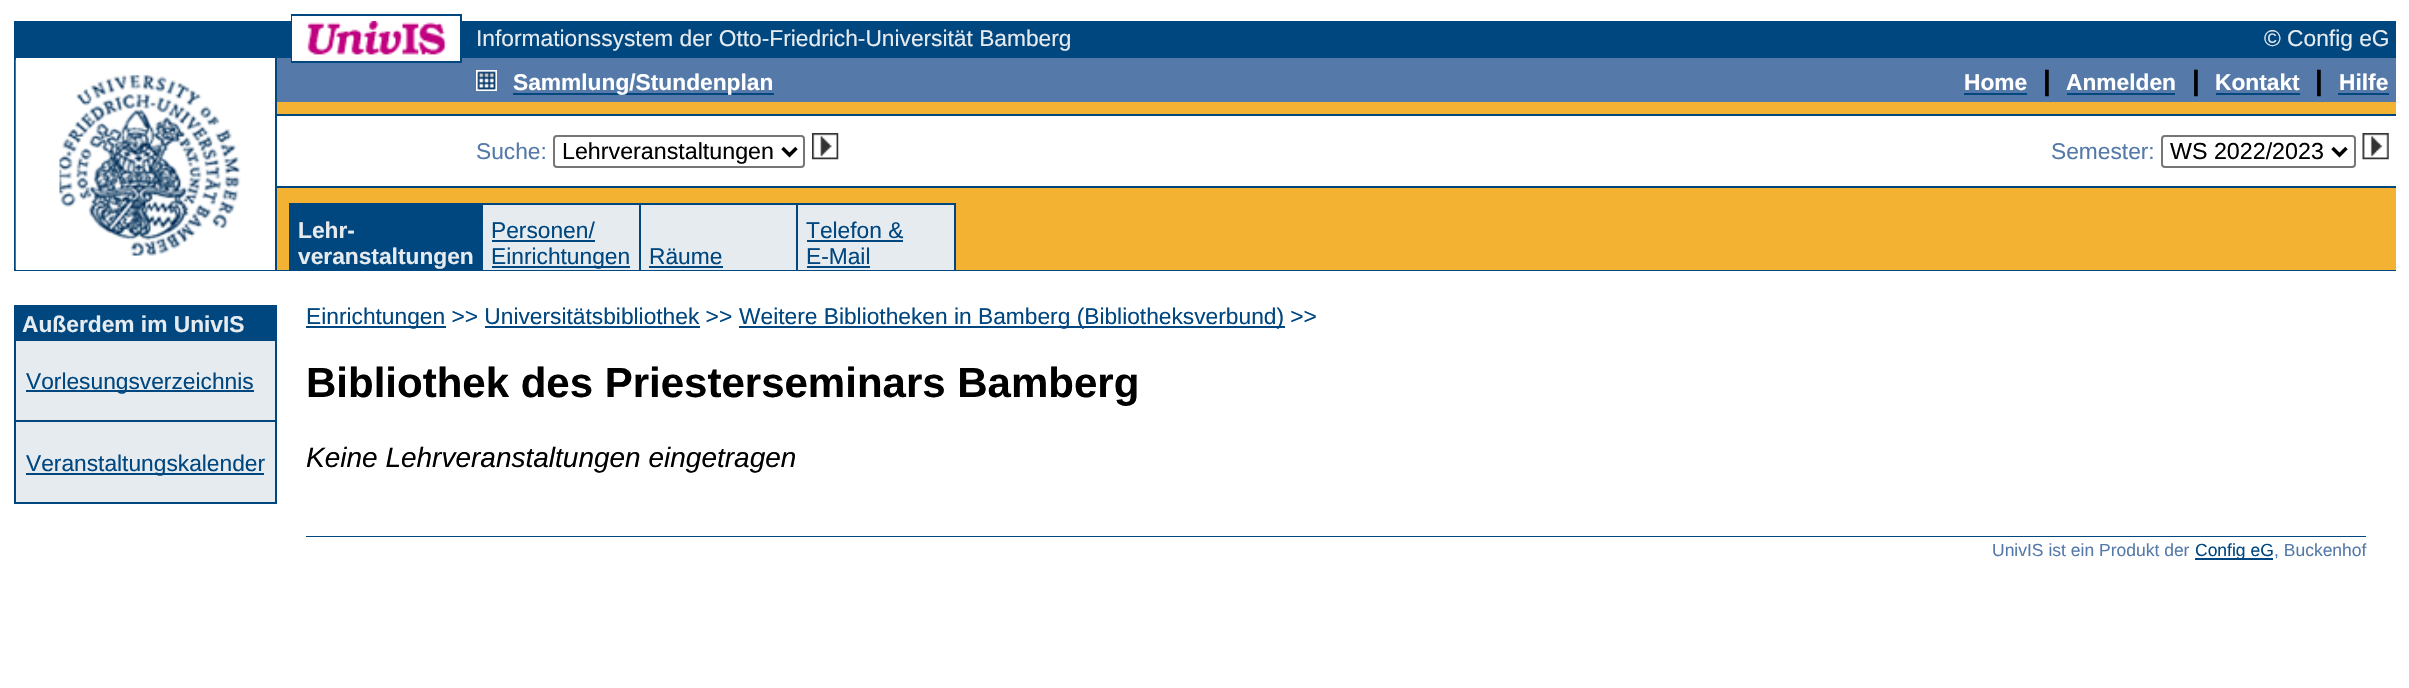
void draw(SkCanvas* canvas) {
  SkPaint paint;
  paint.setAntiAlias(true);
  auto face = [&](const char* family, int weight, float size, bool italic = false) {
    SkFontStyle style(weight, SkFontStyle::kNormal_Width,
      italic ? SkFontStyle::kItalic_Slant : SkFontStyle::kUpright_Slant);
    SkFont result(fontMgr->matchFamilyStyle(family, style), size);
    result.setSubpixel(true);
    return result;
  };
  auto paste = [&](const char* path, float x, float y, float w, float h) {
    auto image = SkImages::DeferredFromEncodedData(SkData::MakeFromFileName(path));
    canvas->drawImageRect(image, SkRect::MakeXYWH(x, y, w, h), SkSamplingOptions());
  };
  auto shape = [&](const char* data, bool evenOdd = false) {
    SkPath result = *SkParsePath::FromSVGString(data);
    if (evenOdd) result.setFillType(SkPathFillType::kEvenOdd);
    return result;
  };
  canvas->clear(0xffffffff);
  {
    const struct { float x, y, w, h; SkColor color; } items[] = {
      {291, 14, 171, 2, 0xff00467f},
      {291, 16, 1, 5, 0xff00467f},
      {460, 16, 2, 40, 0xff00467f},
      {14, 21, 278, 35, 0xff00467f},
    };
    for (auto [x, y, w, h, color] : items) {
      paint.setColor(color);
      canvas->drawRect(SkRect::MakeXYWH(x, y, w, h), paint);
    }
  }
  paste("img/1.png", 307, 21, 140, 34);
  {
    const struct { float x, y, w, h; SkColor color; } items[] = {
      {462, 21, 1934, 35, 0xff00467f},
      {14, 56, 2382, 2, 0xff00467f},
      {292, 56, 168, 2, 0xffffffff},
      {14, 58, 2, 213, 0xff00467f},
      {275, 58, 2, 212, 0xff00467f},
    };
    for (auto [x, y, w, h, color] : items) {
      paint.setColor(color);
      canvas->drawRect(SkRect::MakeXYWH(x, y, w, h), paint);
    }
  }
  paste("img/2.png", 15, 59, 226, 211);
  {
    const struct { float x, y, w, h; SkColor color; } items[] = {
      {277, 102, 2119, 168, 0xfff3b231},
      {277, 58, 2119, 3, 0xff557aa9},
      {291, 58, 1, 4, 0xff00467f},
      {292, 58, 168, 3, 0xffffffff},
      {460, 58, 2, 4, 0xff00467f},
      {277, 61, 2119, 4, 0xff557aa9},
      {291, 61, 171, 2, 0xff00467f},
      {277, 65, 2119, 37, 0xff557aa9},
    };
    for (auto [x, y, w, h, color] : items) {
      paint.setColor(color);
      canvas->drawRect(SkRect::MakeXYWH(x, y, w, h), paint);
    }
  }
  paste("img/3.png", 476, 70, 21, 21);
  {
    const struct { float x, y, w, h; SkColor color; } items[] = {
      {513, 93, 261, 2, 0xff00467f},
      {1964, 93, 63, 2, 0xff00467f},
      {2067, 93, 108, 2, 0xff00467f},
      {2216, 93, 84, 2, 0xff00467f},
      {2338, 93, 51, 2, 0xff00467f},
      {277, 114, 2119, 2, 0xff00467f},
      {277, 116, 2119, 70, 0xffffffff},
    };
    for (auto [x, y, w, h, color] : items) {
      paint.setColor(color);
      canvas->drawRect(SkRect::MakeXYWH(x, y, w, h), paint);
    }
  }
  paint.setStroke(true);
  paint.setStrokeWidth(2);
  paint.setColor(0xff767676);
  canvas->drawRoundRect(SkRect::MakeXYWH(554, 136, 250, 31), 3, 3, paint);
  paint.setStrokeWidth(3.5f);
  paint.setColor(0xff000000);
  canvas->drawPath(shape("M782.5 148L789.5 155L796.5 148"), paint);
  paste("img/4.png", 812, 133, 27, 27);
  paint.setStrokeWidth(2);
  paint.setColor(0xff767676);
  canvas->drawRoundRect(SkRect::MakeXYWH(2162, 136, 193, 31), 3, 3, paint);
  paint.setStrokeWidth(3.5f);
  paint.setColor(0xff000000);
  canvas->drawPath(shape("M2332.5 148L2339.5 155L2346.5 148"), paint);
  paste("img/5.png", 2362, 133, 27, 27);
  paint.setStroke(false);
  {
    const struct { float x, y, w, h; SkColor color; } items[] = {
      {277, 186, 2119, 2, 0xff00467f},
      {289, 203, 667, 2, 0xff00467f},
      {289, 205, 194, 65, 0xff00467f},
      {483, 205, 156, 65, 0xffe5ebef},
      {639, 205, 2, 65, 0xff00467f},
      {641, 205, 155, 65, 0xffe5ebef},
      {796, 205, 2, 65, 0xff00467f},
      {798, 205, 156, 65, 0xffe5ebef},
      {954, 205, 2, 65, 0xff00467f},
      {492, 240, 103, 2, 0xff00467f},
      {492, 266, 138, 2, 0xff00467f},
      {649, 266, 74, 2, 0xff00467f},
      {807, 240, 96, 2, 0xff00467f},
      {807, 266, 63, 2, 0xff00467f},
      {16, 270, 2380, 1, 0xff00467f},
      {14, 305, 2, 199, 0xff00467f},
      {16, 305, 259, 36, 0xff00467f},
      {275, 305, 2, 199, 0xff00467f},
      {16, 341, 259, 79, 0xffe5ebef},
      {26, 390, 228, 2, 0xff00467f},
      {16, 420, 259, 2, 0xff00467f},
      {16, 422, 259, 2, 0xffe5ebef},
      {16, 424, 259, 78, 0xffe5ebef},
      {26, 473, 238, 2, 0xff00467f},
      {16, 502, 259, 2, 0xff00467f},
      {306, 326, 140, 2, 0xff00467f},
      {485, 326, 215, 2, 0xff00467f},
      {739, 326, 546, 2, 0xff00467f},
      {306, 536, 2060, 1, 0xff00467f},
      {2195, 558, 78, 2, 0xff00467f},
    };
    for (auto [x, y, w, h, color] : items) {
      paint.setColor(color);
      canvas->drawRect(SkRect::MakeXYWH(x, y, w, h), paint);
    }
  }
  auto f0 = face("Liberation Sans", 400, 22.75f);
  paint.setColor(0xffe5ebef);
  canvas->drawString("Informationssystem der Otto-Friedrich-Universität Bamberg", 476, 46, f0, paint);
  canvas->drawString("© Config eG", 2264, 46, f0, paint);
  auto f1 = face("Liberation Sans", 700, 22.75f);
  paint.setColor(0xffffffff);
  canvas->drawString("Sammlung/Stundenplan", 513, 90, f1, paint);
  canvas->drawString("Home", 1964, 90, f1, paint);
  auto f2 = face("Liberation Sans", 700, 28);
  paint.setColor(0xff000000);
  canvas->drawString("|", 2043, 90, f2, paint);
  paint.setColor(0xffffffff);
  canvas->drawString("Anmelden", 2066, 90, f1, paint);
  paint.setColor(0xff000000);
  canvas->drawString("|", 2192, 90, f2, paint);
  paint.setColor(0xffffffff);
  canvas->drawString("Kontakt", 2215, 90, f1, paint);
  paint.setColor(0xff000000);
  canvas->drawString("|", 2315, 90, f2, paint);
  paint.setColor(0xffffffff);
  canvas->drawString("Hilfe", 2339, 90, f1, paint);
  paint.setColor(0xff557aa9);
  canvas->drawString("Suche:", 476, 159, f0, paint);
  auto f3 = face("Liberation Sans", 400, 23.25f);
  paint.setColor(0xff000000);
  canvas->drawString("Lehrveranstaltungen", 562, 159, f3, paint);
  paint.setColor(0xff557aa9);
  canvas->drawString("Semester:", 2051, 159, f0, paint);
  paint.setColor(0xff000000);
  canvas->drawString("WS 2022/2023", 2170, 159, f3, paint);
  paint.setColor(0xffe5ebef);
  canvas->drawString("Lehr-", 298, 238, f1, paint);
  canvas->drawString("veranstaltungen", 298, 264, f1, paint);
  paint.setColor(0xff00467f);
  {
    const struct { const char* s; float x, y; } items[] = {
      {"Personen/", 491, 238},
      {"Einrichtungen", 491, 264},
      {"Räume", 649, 264},
      {"Telefon &", 806, 238},
      {"E-Mail", 806, 264},
    };
    for (auto [s, x, y] : items) {
      canvas->drawString(s, x, y, f0, paint);
    }
  }
  paint.setColor(0xffe5ebef);
  canvas->drawString("Außerdem im UnivIS", 22, 332, f1, paint);
  paint.setColor(0xff00467f);
  {
    const struct { const char* s; float x, y; } items[] = {
      {"Vorlesungsverzeichnis", 26, 389},
      {"Veranstaltungskalender", 26, 471},
      {"Einrichtungen >> Universitätsbibliothek >>", 306, 324},
      {"Weitere Bibliotheken in Bamberg (Bibliotheksverbund) >>", 739, 324},
    };
    for (auto [s, x, y] : items) {
      canvas->drawString(s, x, y, f0, paint);
    }
  }
  auto f4 = face("Liberation Sans", 700, 42);
  paint.setColor(0xff000000);
  canvas->drawString("Bibliothek des Priesterseminars Bamberg", 306, 397, f4, paint);
  auto f5 = face("Liberation Sans", 400, 28, true);
  canvas->drawString("Keine Lehrveranstaltungen eingetragen", 306, 467, f5, paint);
  auto f6 = face("Liberation Sans", 400, 17.5f);
  paint.setColor(0xff557aa9);
  canvas->drawString("UnivIS ist ein Produkt der", 1992, 556, f6, paint);
  paint.setColor(0xff00467f);
  canvas->drawString("Config eG", 2195, 556, f6, paint);
  paint.setColor(0xff557aa9);
  canvas->drawString(", Buckenhof", 2274, 556, f6, paint);
}
